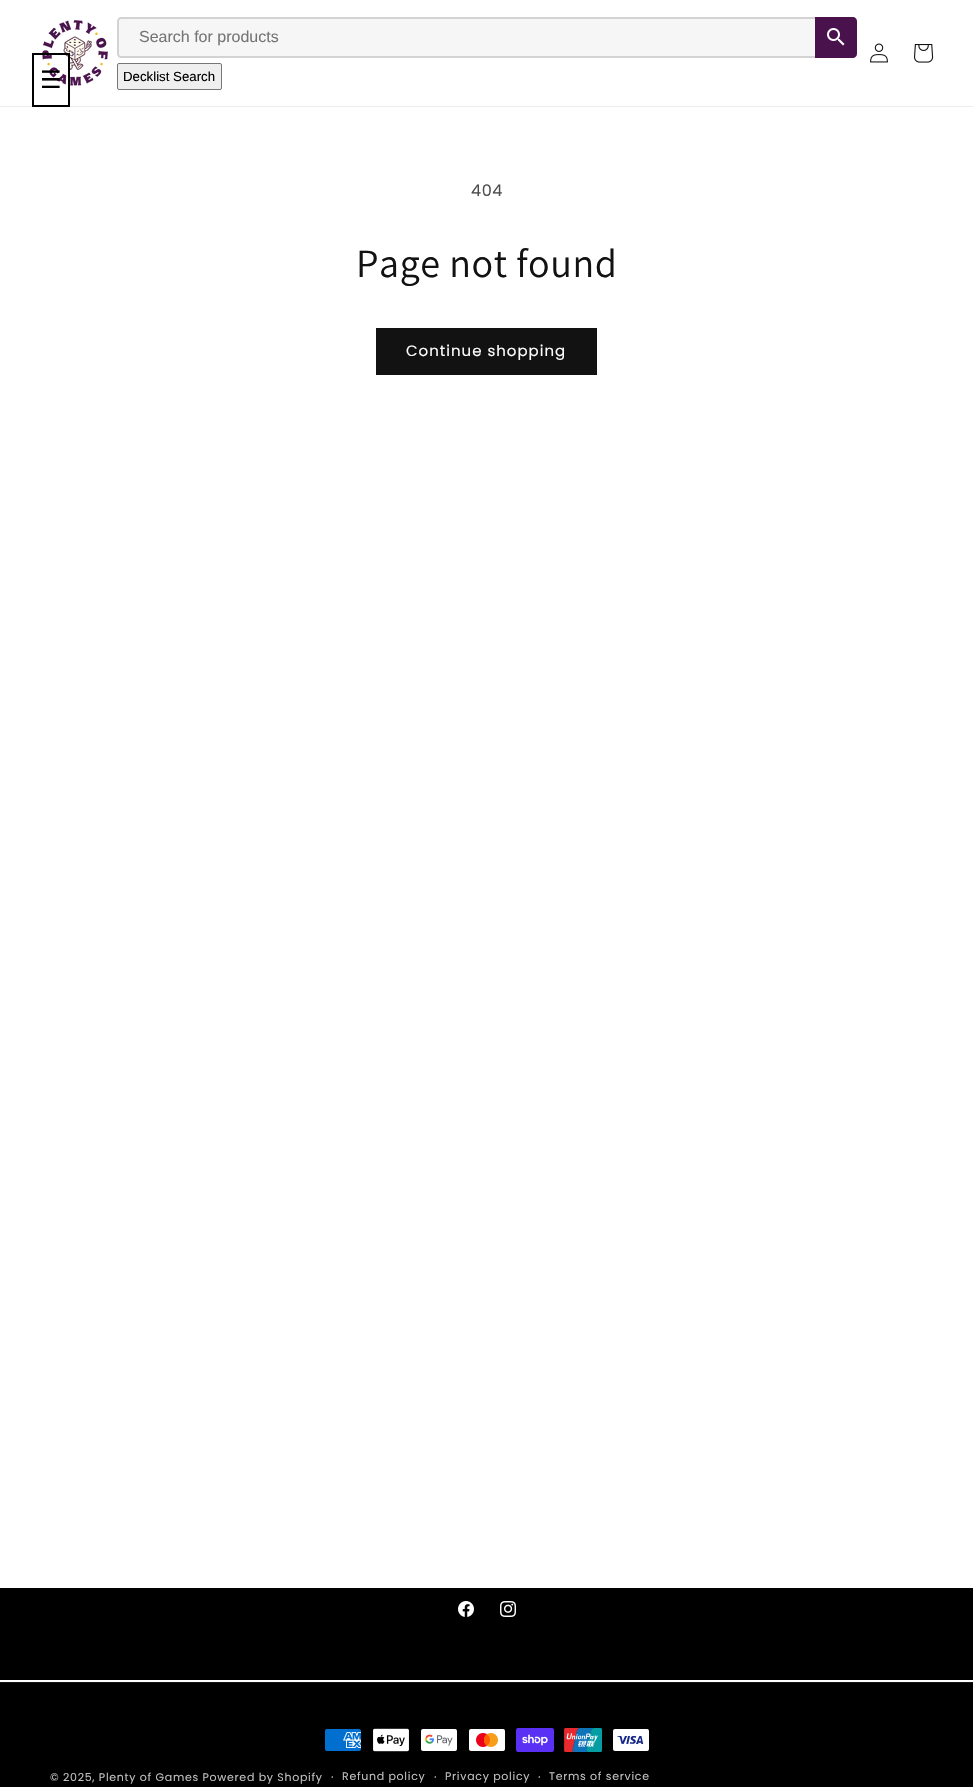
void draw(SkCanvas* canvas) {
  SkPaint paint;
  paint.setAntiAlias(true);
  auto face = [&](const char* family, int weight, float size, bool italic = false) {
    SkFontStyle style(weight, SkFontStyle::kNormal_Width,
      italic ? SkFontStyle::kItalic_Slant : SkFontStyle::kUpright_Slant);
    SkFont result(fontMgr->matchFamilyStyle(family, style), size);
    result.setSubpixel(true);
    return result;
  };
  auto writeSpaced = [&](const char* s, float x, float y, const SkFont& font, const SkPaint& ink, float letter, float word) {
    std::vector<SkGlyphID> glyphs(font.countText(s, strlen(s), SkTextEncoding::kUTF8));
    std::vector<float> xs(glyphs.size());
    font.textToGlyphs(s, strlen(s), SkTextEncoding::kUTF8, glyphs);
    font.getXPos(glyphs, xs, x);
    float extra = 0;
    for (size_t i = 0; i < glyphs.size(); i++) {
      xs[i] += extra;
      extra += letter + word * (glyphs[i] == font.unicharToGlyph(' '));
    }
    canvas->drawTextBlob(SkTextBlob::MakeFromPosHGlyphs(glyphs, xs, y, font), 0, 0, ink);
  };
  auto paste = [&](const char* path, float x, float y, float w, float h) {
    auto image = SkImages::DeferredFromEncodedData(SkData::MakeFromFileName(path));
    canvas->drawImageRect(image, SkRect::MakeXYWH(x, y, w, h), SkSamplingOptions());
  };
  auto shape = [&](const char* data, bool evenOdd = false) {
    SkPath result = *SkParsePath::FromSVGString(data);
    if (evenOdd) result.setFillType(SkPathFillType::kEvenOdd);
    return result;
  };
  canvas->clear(0xffffffff);
  paint.setColor(0xffececec);
  canvas->drawRect(SkRect::MakeXYWH(0, 106, 973, 1), paint);
  paste("img/1.png", 42, 20, 66, 66);
  paint.setColor(0xfff6f6f6);
  canvas->drawPath(shape("M121 17H815V58H121C119 58 117 56 117 54V21C117 19 119 17 121 17Z"), paint);
  paint.setColor(0xffd3d3d3);
  canvas->drawPath(shape("M121 17H815V58H121C119 58 117 56 117 54V21C117 19 119 17 121 17ZM121 19H815V56H121C120 56 119 55 119 54V21C119 20 120 19 121 19Z", true), paint);
  paint.setColor(0xff4a124d);
  canvas->drawPath(shape("M815 17H853C855 17 857 19 857 21V54C857 56 855 58 853 58H815Z"), paint);
  paste("img/2.png", 827, 28, 18, 18);
  paint.setColor(0xffefefef);
  canvas->drawRoundRect(SkRect::MakeXYWH(117.5f, 63.5f, 104, 26), 1.5f, 1.5f, paint);
  paint.setStroke(true);
  paint.setStrokeWidth(1);
  paint.setColor(0xff767676);
  canvas->drawRoundRect(SkRect::MakeXYWH(117.5f, 63.5f, 104, 26), 1.5f, 1.5f, paint);
  paste("img/3.png", 870, 43, 18, 20);
  paste("img/4.png", 914, 44, 20, 19);
  paint.setStrokeWidth(2);
  paint.setColor(0xff000000);
  canvas->drawRect(SkRect::MakeXYWH(33, 54, 36, 52), paint);
  paint.setStroke(false);
  {
    const struct { float x, y, w, h; SkColor color; } items[] = {
      {376, 328, 221, 47, 0xff121212},
      {0, 1588, 973, 199, 0xff000000},
      {0, 1680, 973, 2, 0xffffffff},
    };
    for (auto [x, y, w, h, color] : items) {
      paint.setColor(color);
      canvas->drawRect(SkRect::MakeXYWH(x, y, w, h), paint);
    }
  }
  paste("img/5.png", 458, 1601, 16, 16);
  paste("img/6.png", 500, 1601, 16, 16);
  paint.setColor(0xff141414);
  canvas->drawRect(SkRect::MakeXYWH(0, 1682, 973, 1), paint);
  paste("img/7.png", 325, 1729, 36, 22);
  paste("img/8.png", 373, 1728, 36, 24);
  paste("img/9.png", 421, 1729, 36, 22);
  paste("img/10.png", 469, 1729, 36, 22);
  paste("img/11.png", 516, 1728, 38, 24);
  paste("img/12.png", 564, 1728, 38, 24);
  paste("img/13.png", 613, 1729, 36, 22);
  auto f0 = face("Liberation Sans", 400, 16);
  paint.setColor(0xff757575);
  canvas->drawString("Search for products", 139, 42, f0, paint);
  auto f1 = face("Liberation Sans", 400, 13.25f);
  paint.setColor(0xff000000);
  canvas->drawString("Decklist Search", 123, 81, f1, paint);
  auto f2 = face("DejaVu Sans", 400, 24);
  canvas->drawString("☰", 40, 88, f2, paint);
  auto f3 = face("Poppins", 400, 16);
  paint.setColor(0xff4d4d4d);
  writeSpaced("404", 471, 196, f3, paint, 0.6f, 0);
  auto f4 = face("Assistant", 400, 40);
  paint.setColor(0xff121212);
  writeSpaced("Page not found", 356, 277, f4, paint, 0.6f, 0);
  auto f5 = face("Poppins", 400, 15);
  paint.setColor(0xffffffff);
  writeSpaced("Continue shopping", 406, 356, f5, paint, 1, 0);
  auto f6 = face("Poppins", 400, 11);
  paint.setColor(0xffbfbfbf);
  writeSpaced("© 2025, Plenty of Games Powered by Shopify", 50, 1781, f6, paint, 0.7f, 0);
  auto f7 = face("Poppins", 400, 12);
  writeSpaced("·", 331, 1781, f7, paint, 0.7f, 0);
  writeSpaced("Refund policy", 342, 1780, f6, paint, 0.7f, 0);
  writeSpaced("·", 434, 1781, f7, paint, 0.7f, 0);
  writeSpaced("Privacy policy", 445, 1780, f6, paint, 0.7f, 0);
  writeSpaced("·", 538, 1781, f7, paint, 0.7f, 0);
  writeSpaced("Terms of service", 549, 1780, f6, paint, 0.7f, 0);
}
